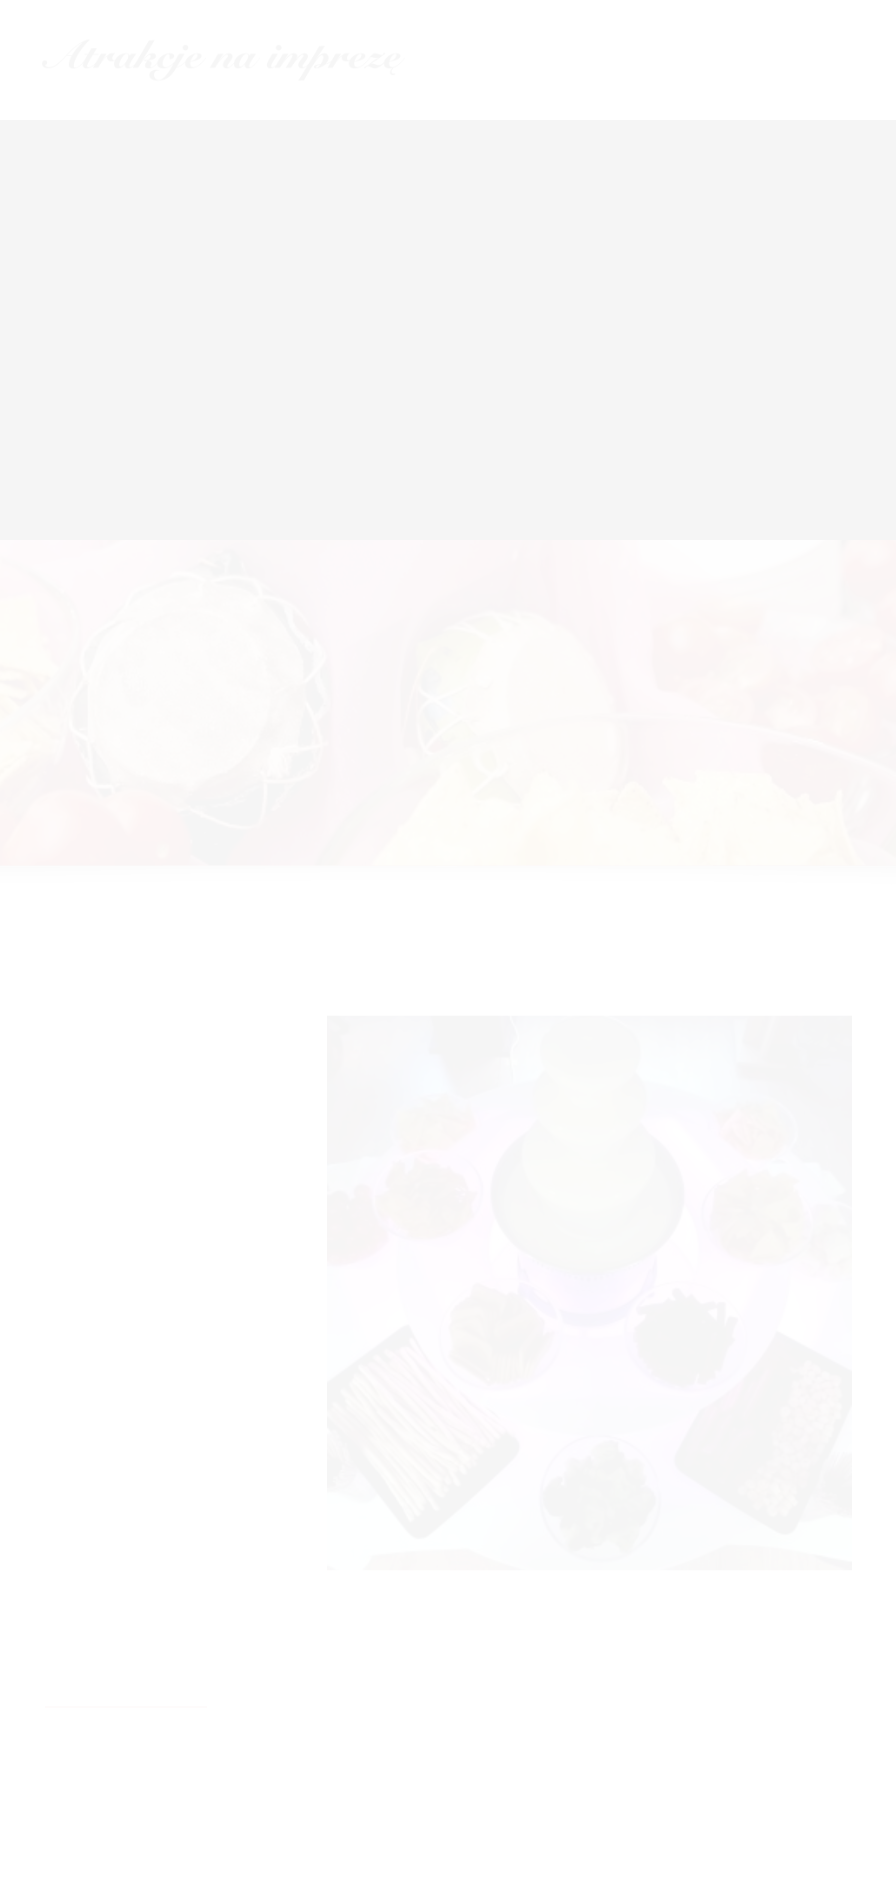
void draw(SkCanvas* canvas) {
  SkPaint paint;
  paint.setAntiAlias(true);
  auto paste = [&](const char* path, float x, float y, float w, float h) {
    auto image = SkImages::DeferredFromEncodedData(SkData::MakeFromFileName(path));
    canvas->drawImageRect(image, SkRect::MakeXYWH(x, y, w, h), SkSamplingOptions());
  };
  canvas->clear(0xffffffff);
  paste("img/1.png", 41, 38, 365, 44);
  paint.setColor(0xfffefbfb);
  canvas->drawRect(SkRect::MakeXYWH(0, 865, 896, 1), paint);
  paste("img/2.png", 0, 121, 896, 745);
  paint.setColor(0xf5f5f5f5);
  canvas->drawRect(SkRect::MakeXYWH(0, 120, 896, 420), paint);
  paste("img/3.png", 0, 865, 896, 24);
  paste("img/4.png", 327, 1015, 525, 556);
  paint.setColor(0xfffefbfb);
  canvas->drawRect(SkRect::MakeXYWH(45, 1706, 162, 2), paint);
}
